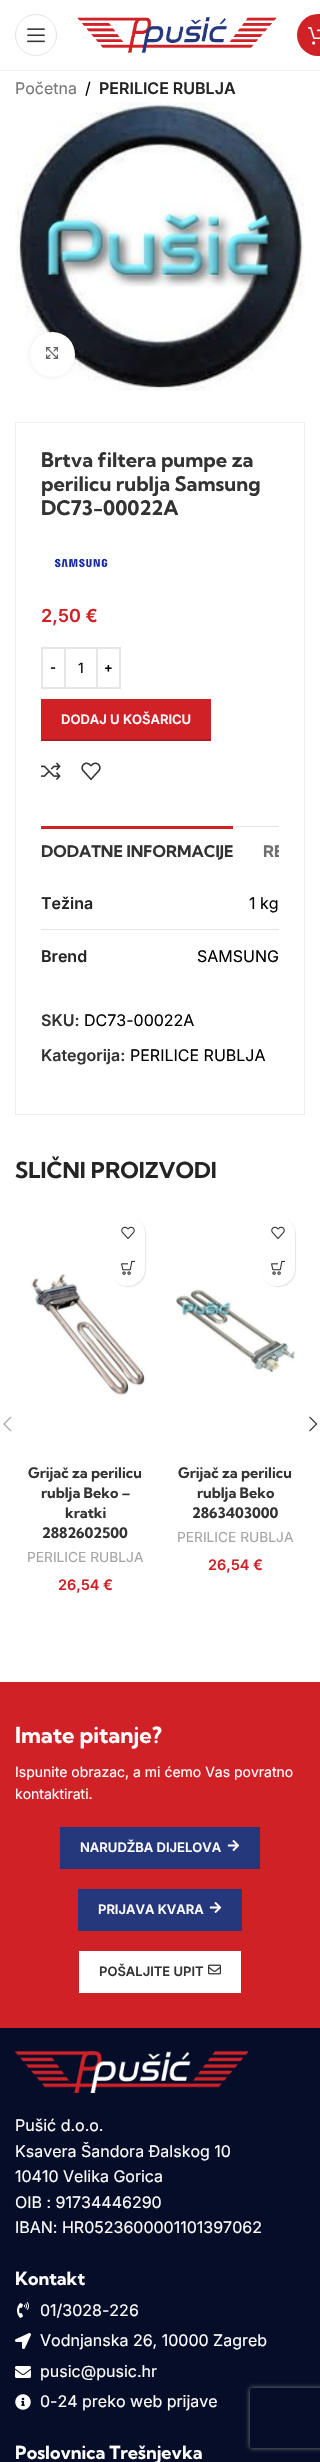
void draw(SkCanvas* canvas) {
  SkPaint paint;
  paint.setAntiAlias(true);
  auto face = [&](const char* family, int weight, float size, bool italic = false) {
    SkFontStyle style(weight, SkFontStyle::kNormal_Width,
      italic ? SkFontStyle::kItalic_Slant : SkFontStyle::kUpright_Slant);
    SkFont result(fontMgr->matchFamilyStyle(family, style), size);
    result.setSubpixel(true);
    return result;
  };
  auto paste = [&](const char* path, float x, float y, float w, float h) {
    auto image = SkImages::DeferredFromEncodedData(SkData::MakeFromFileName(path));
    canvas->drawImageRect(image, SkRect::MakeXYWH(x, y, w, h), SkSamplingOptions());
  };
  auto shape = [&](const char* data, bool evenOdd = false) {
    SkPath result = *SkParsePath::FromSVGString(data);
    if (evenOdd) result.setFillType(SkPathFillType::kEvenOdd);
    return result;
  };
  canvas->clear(0xffffffff);
  paint.setColor(0xfff1efed);
  canvas->drawRect(SkRect::MakeXYWH(0, 70, 320, 1), paint);
  paint.setStroke(true);
  paint.setStrokeWidth(1);
  paint.setColor(0xffe4e4e4);
  canvas->drawCircle(36, 35, 20.5f, paint);
  paste("img/1.png", 27, 28, 18, 15);
  paste("img/2.png", 77, 17, 200, 36);
  paint.setStroke(false);
  paint.setColor(0xffd02127);
  canvas->drawCircle(318, 35, 21, paint);
  paste("img/3.png", 308, 27, 12, 18);
  paste("img/4.png", 15, 102, 290, 289);
  paint.setColor(0x14000000);
  paint.setMaskFilter(SkMaskFilter::MakeBlur(kNormal_SkBlurStyle, 2.5f));
  canvas->drawRoundRect(SkRect::MakeXYWH(30, 332, 45, 45), 22.5f, 22.5f, paint);
  paint.setMaskFilter(nullptr);
  paint.setColor(0xffffffff);
  canvas->drawCircle(52.5f, 354.5f, 22.5f, paint);
  paste("img/5.png", 46, 347, 12, 12);
  paint.setStroke(true);
  paint.setColor(0xfff1efed);
  canvas->drawRect(SkRect::MakeXYWH(15.5f, 422.5f, 289, 692), paint);
  paste("img/6.png", 54, 558, 54, 10);
  paint.setStrokeWidth(2);
  paint.setColor(0xffe6e6e6);
  canvas->drawRect(SkRect::MakeXYWH(42, 648, 23, 40), paint);
  paint.setStroke(false);
  canvas->drawRect(SkRect::MakeXYWH(66, 647, 30, 2), paint);
  canvas->drawRect(SkRect::MakeXYWH(66, 687, 30, 2), paint);
  paint.setStroke(true);
  canvas->drawRect(SkRect::MakeXYWH(97, 648, 23, 40), paint);
  paint.setStroke(false);
  paint.setColor(0xffd02127);
  canvas->drawRect(SkRect::MakeXYWH(41, 699, 170, 40), paint);
  paint.setColor(0xffb11c21);
  canvas->drawRect(SkRect::MakeXYWH(41, 739, 170, 2), paint);
  paste("img/7.png", 41, 762, 20, 18);
  paste("img/8.png", 81, 762, 20, 18);
  {
    const struct { float x, y, w, h; SkColor color; } items[] = {
      {233, 826, 46, 1, 0xffe4e4e4},
      {41, 826, 192, 3, 0xffd02127},
      {41, 929, 238, 1, 0xffe4e4e4},
    };
    for (auto [x, y, w, h, color] : items) {
      paint.setColor(color);
      canvas->drawRect(SkRect::MakeXYWH(x, y, w, h), paint);
    }
  }
  paste("img/9.png", 3, 1416, 9, 16);
  paste("img/10.png", 309, 1416, 9, 16);
  paste("img/11.png", 30, 1274, 116, 121);
  paint.setColor(0x1a000000);
  paint.setMaskFilter(SkMaskFilter::MakeBlur(kNormal_SkBlurStyle, 0.5f));
  canvas->drawRoundRect(SkRect::MakeXYWH(111, 1217, 35, 70), 17.5f, 17.5f, paint);
  paint.setMaskFilter(nullptr);
  paint.setColor(0xffffffff);
  canvas->drawRoundRect(SkRect::MakeXYWH(110, 1216, 35, 70), 17.5f, 17.5f, paint);
  paste("img/12.png", 121, 1226, 14, 13);
  paste("img/13.png", 121, 1260, 14, 15);
  paste("img/14.png", 176, 1288, 120, 85);
  paint.setColor(0x1a000000);
  paint.setMaskFilter(SkMaskFilter::MakeBlur(kNormal_SkBlurStyle, 0.5f));
  canvas->drawRoundRect(SkRect::MakeXYWH(261, 1217, 35, 70), 17.5f, 17.5f, paint);
  paint.setMaskFilter(nullptr);
  paint.setColor(0xffffffff);
  canvas->drawRoundRect(SkRect::MakeXYWH(260, 1216, 35, 70), 17.5f, 17.5f, paint);
  paste("img/12.png", 271, 1226, 14, 13);
  paste("img/13.png", 271, 1260, 14, 15);
  {
    const struct { float x, y, w, h; SkColor color; } items[] = {
      {0, 2028, 320, 434, 0xff050d29},
      {0, 1682, 320, 346, 0xffd02127},
      {60, 1827, 200, 42, 0xff25387c},
    };
    for (auto [x, y, w, h, color] : items) {
      paint.setColor(color);
      canvas->drawRect(SkRect::MakeXYWH(x, y, w, h), paint);
    }
  }
  paste("img/15.png", 227, 1840, 13, 11);
  canvas->drawRect(SkRect::MakeXYWH(78, 1889, 164, 42), paint);
  paste("img/15.png", 209, 1902, 13, 11);
  paint.setColor(0xffffffff);
  canvas->drawRect(SkRect::MakeXYWH(79, 1951, 162, 42), paint);
  paste("img/16.png", 208, 1964, 13, 11);
  paste("img/17.png", 15, 2051, 233, 42);
  paste("img/18.png", 17, 2302, 12, 16);
  paste("img/19.png", 15, 2333, 16, 16);
  paste("img/20.png", 15, 2366, 16, 12);
  paste("img/21.png", 15, 2394, 16, 16);
  canvas->save();
  canvas->clipPath(shape("M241 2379H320V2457H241ZM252 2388H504C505 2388 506 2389 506 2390V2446C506 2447 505 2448 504 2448H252C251 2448 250 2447 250 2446V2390C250 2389 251 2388 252 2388Z", true), true);
  paint.setColor(0xff808080);
  paint.setMaskFilter(SkMaskFilter::MakeBlur(kNormal_SkBlurStyle, 2.5f));
  canvas->drawRoundRect(SkRect::MakeXYWH(250, 2388, 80, 60), 2, 2, paint);
  paint.setMaskFilter(nullptr);
  canvas->restore();
  auto f0 = face("Inter", 400, 16);
  paint.setColor(0xff767676);
  canvas->drawString("Početna", 15, 94, f0, paint);
  paint.setColor(0xff020202);
  canvas->drawString("/", 85, 94, f0, paint);
  auto f1 = face("Inter", 600, 16);
  paint.setColor(0xff242424);
  canvas->drawString("PERILICE RUBLJA", 99, 94, f1, paint);
  auto f2 = face("Kumbh Sans", 700, 20);
  paint.setColor(0xff333333);
  {
    const struct { const char* s; float x, y; } items[] = {
      {"Brtva filtera pumpe za", 41, 467},
      {"perilicu rublja Samsung", 41, 491},
      {"DC73-00022A", 41, 515},
    };
    for (auto [s, x, y] : items) {
      canvas->drawString(s, x, y, f2, paint);
    }
  }
  auto f3 = face("Inter", 600, 18);
  paint.setColor(0xffd02127);
  canvas->drawString("2,50 €", 41, 622, f3, paint);
  auto f4 = face("Inter", 600, 13);
  paint.setColor(0xff020202);
  canvas->drawString("-", 50, 672, f4, paint);
  auto f5 = face("Inter", 400, 14);
  canvas->drawString("1", 78, 673, f5, paint);
  canvas->drawString("+", 104, 672, f4, paint);
  paint.setColor(0xffffffff);
  canvas->drawString("DODAJ U KOŠARICU", 61, 724, f4, paint);
  auto f6 = face("Kumbh Sans", 700, 16);
  paint.setColor(0xff333333);
  canvas->drawString("DODATNE INFORMACIJE", 41, 857, f6, paint);
  canvas->save();
  canvas->clipRect(SkRect::MakeXYWH(41, 826, 238, 46));
  paint.setColor(0xff707070);
  canvas->drawString("RE", 263, 857, f6, paint);
  canvas->restore();
  paint.setColor(0xff242424);
  canvas->drawString("Težina", 41, 909, f1, paint);
  paint.setColor(0xff020202);
  canvas->drawString("1 kg", 249, 909, f0, paint);
  paint.setColor(0xff242424);
  canvas->drawString("Brend", 41, 962, f1, paint);
  paint.setColor(0xff020202);
  canvas->drawString("SAMSUNG", 197, 962, f0, paint);
  paint.setColor(0xff333333);
  canvas->drawString("SKU:", 41, 1026, f1, paint);
  paint.setColor(0xff020202);
  canvas->drawString("DC73-00022A", 84, 1026, f0, paint);
  paint.setColor(0xff333333);
  canvas->drawString("Kategorija:", 41, 1061, f1, paint);
  paint.setColor(0xff020202);
  canvas->drawString("PERILICE RUBLJA", 130, 1061, f0, paint);
  auto f7 = face("Kumbh Sans", 700, 22);
  paint.setColor(0xff242424);
  canvas->drawString("SLIČNI PROIZVODI", 15, 1178, f7, paint);
  auto f8 = face("Kumbh Sans", 700, 14.5f);
  paint.setColor(0xff333333);
  {
    const struct { const char* s; float x, y; } items[] = {
      {"Grijač za perilicu", 28, 1478},
      {"rublja Beko –", 41, 1498},
      {"kratki", 65, 1518},
      {"2882602500", 42, 1538},
    };
    for (auto [s, x, y] : items) {
      canvas->drawString(s, x, y, f8, paint);
    }
  }
  auto f9 = face("Inter", 400, 13.75f);
  paint.setColor(0xffa5a5a5);
  canvas->drawString("PERILICE RUBLJA", 27, 1562, f9, paint);
  auto f10 = face("Inter", 600, 14.5f);
  paint.setColor(0xffd02127);
  canvas->drawString("26,54 €", 58, 1590, f10, paint);
  paint.setColor(0xff333333);
  {
    const struct { const char* s; float x, y; } items[] = {
      {"Grijač za perilicu", 178, 1478},
      {"rublja Beko", 197, 1498},
      {"2863403000", 192, 1518},
    };
    for (auto [s, x, y] : items) {
      canvas->drawString(s, x, y, f8, paint);
    }
  }
  paint.setColor(0xffa5a5a5);
  canvas->drawString("PERILICE RUBLJA", 177, 1542, f9, paint);
  paint.setColor(0xffd02127);
  canvas->drawString("26,54 €", 208, 1570, f10, paint);
  paint.setColor(0xffffffff);
  canvas->drawString("Imate pitanje?", 15, 1743, f7, paint);
  canvas->drawString("Ispunite obrazac, a mi ćemo Vas povratno", 15, 1777, f5, paint);
  canvas->drawString("kontaktirati.", 15, 1799, f5, paint);
  canvas->drawString("NARUDŽBA DIJELOVA", 80, 1852, f4, paint);
  canvas->drawString("PRIJAVA KVARA", 98, 1914, f4, paint);
  paint.setColor(0xff333333);
  canvas->drawString("POŠALJITE UPIT", 99, 1976, f4, paint);
  paint.setColor(0xffffffff);
  {
    const struct { const char* s; float x, y; } items[] = {
      {"Pušić d.o.o.", 15, 2131},
      {"Ksavera Šandora Đalskog 10", 15, 2157},
      {"10410 Velika Gorica", 15, 2182},
      {"OIB : 91734446290", 15, 2208},
      {"IBAN: HR0523600001101397062", 15, 2233},
    };
    for (auto [s, x, y] : items) {
      canvas->drawString(s, x, y, f0, paint);
    }
  }
  auto f11 = face("Kumbh Sans", 700, 18);
  canvas->drawString("Kontakt", 15, 2285, f11, paint);
  {
    const struct { const char* s; float x, y; } items[] = {
      {"01/3028-226", 40, 2316},
      {"Vodnjanska 26, 10000 Zagreb", 40, 2346},
      {"pusic@pusic.hr", 40, 2377},
      {"0-24 preko web prijave", 40, 2407},
    };
    for (auto [s, x, y] : items) {
      canvas->drawString(s, x, y, f0, paint);
    }
  }
  canvas->drawString("Poslovnica Trešnjevka", 15, 2459, f11, paint);
}
